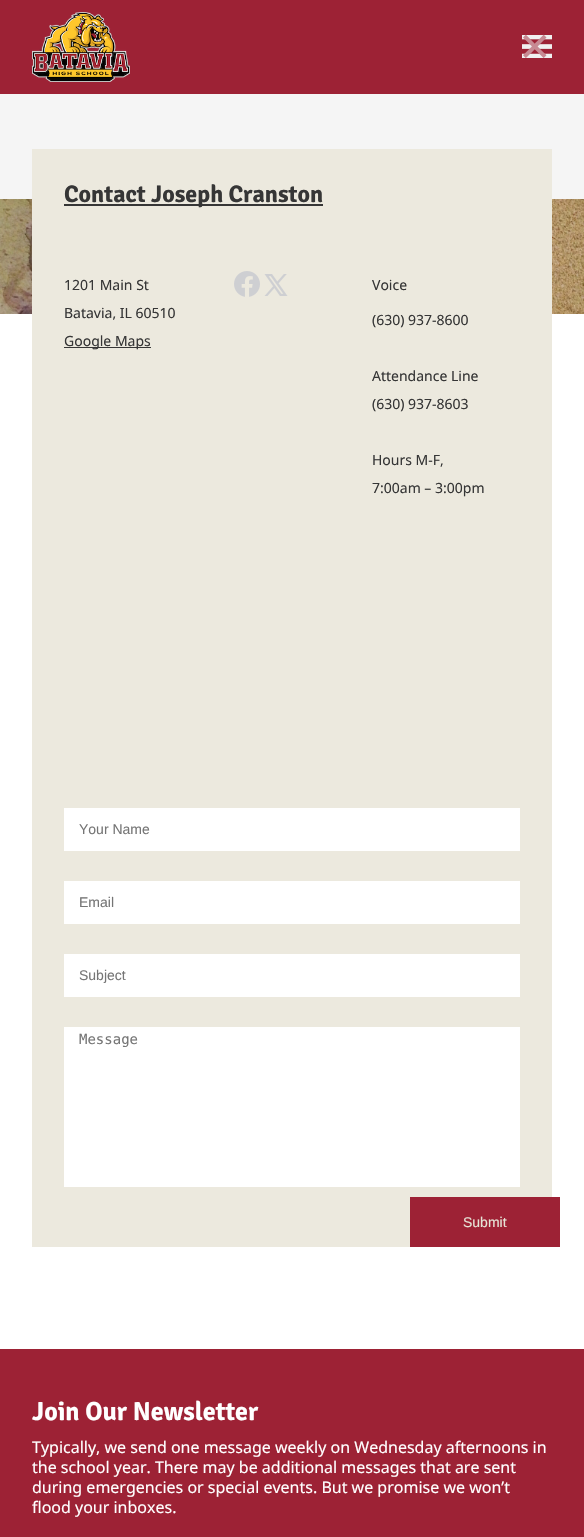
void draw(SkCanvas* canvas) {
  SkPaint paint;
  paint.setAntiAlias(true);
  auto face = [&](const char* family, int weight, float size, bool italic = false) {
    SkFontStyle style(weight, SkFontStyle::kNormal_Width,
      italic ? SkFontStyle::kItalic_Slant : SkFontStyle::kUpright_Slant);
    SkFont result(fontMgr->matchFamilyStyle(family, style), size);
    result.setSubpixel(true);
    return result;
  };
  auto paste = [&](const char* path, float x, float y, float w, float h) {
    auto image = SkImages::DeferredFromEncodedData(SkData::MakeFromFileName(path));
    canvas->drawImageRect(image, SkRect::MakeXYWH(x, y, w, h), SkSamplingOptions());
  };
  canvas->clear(0xffffffff);
  paint.setColor(0xff9d2235);
  canvas->drawRect(SkRect::MakeXYWH(0, 0, 584, 94), paint);
  paste("img/1.png", 32, 12, 98, 70);
  paste("img/2.png", 522, 35, 30, 23);
  paint.setColor(0xfff5f5f5);
  canvas->drawRect(SkRect::MakeXYWH(0, 94, 584, 105), paint);
  paste("img/3.png", 0, 199, 584, 115);
  {
    const struct { float x, y, w, h; SkColor color; } items[] = {
      {32, 149, 520, 1098, 0xffece9de},
      {64, 204, 259, 2, 0xff363636},
      {64, 347, 87, 1, 0xff363636},
    };
    for (auto [x, y, w, h, color] : items) {
      paint.setColor(color);
      canvas->drawRect(SkRect::MakeXYWH(x, y, w, h), paint);
    }
  }
  paste("img/4.png", 234, 271, 26, 26);
  paste("img/5.png", 264, 274, 24, 22);
  {
    const struct { float x, y, w, h; SkColor color; } items[] = {
      {64, 808, 456, 43, 0xffffffff},
      {64, 881, 456, 43, 0xffffffff},
      {64, 954, 456, 43, 0xffffffff},
      {64, 1027, 456, 160, 0xffffffff},
      {410, 1197, 150, 50, 0xff9d2235},
      {0, 1349, 584, 188, 0xff9d2235},
    };
    for (auto [x, y, w, h, color] : items) {
      paint.setColor(color);
      canvas->drawRect(SkRect::MakeXYWH(x, y, w, h), paint);
    }
  }
  auto f0 = face("DejaVu Sans", 400, 40);
  paint.setColor(0xffc78a93);
  canvas->drawString("✕", 518, 61, f0, paint);
  auto f1 = face("Signika Negative", 700, 24);
  paint.setColor(0xff363636);
  canvas->drawString("Contact Joseph Cranston", 64, 202, f1, paint);
  auto f2 = face("Noto Sans", 400, 14);
  {
    const struct { const char* s; float x, y; } items[] = {
      {"1201 Main St", 64, 290},
      {"Batavia, IL 60510", 64, 318},
      {"Google Maps", 64, 346},
      {"Voice", 372, 290},
      {"(630) 937-8600", 372, 325},
      {"Attendance Line", 372, 381},
      {"(630) 937-8603", 372, 409},
      {"Hours M-F,", 372, 465},
      {"7:00am – 3:00pm", 372, 493},
    };
    for (auto [s, x, y] : items) {
      canvas->drawString(s, x, y, f2, paint);
    }
  }
  auto f3 = face("Liberation Sans", 400, 14);
  paint.setColor(0xff757575);
  {
    const struct { const char* s; float x, y; } items[] = {
      {"Your Name", 79, 834},
      {"Email", 79, 907},
      {"Subject", 79, 980},
    };
    for (auto [s, x, y] : items) {
      canvas->drawString(s, x, y, f3, paint);
    }
  }
  auto f4 = face("DejaVu Sans Mono", 400, 14);
  canvas->drawString("Message", 79, 1044, f4, paint);
  paint.setColor(0xffe7e3d6);
  canvas->drawString("Submit", 463, 1227, f3, paint);
  auto f5 = face("Signika Negative", 700, 26);
  paint.setColor(0xffffffff);
  canvas->drawString("Join Our Newsletter", 32, 1420, f5, paint);
  auto f6 = face("Noto Sans", 400, 16);
  {
    const struct { const char* s; float x, y; } items[] = {
      {"Typically, we send one message weekly on Wednesday afternoons in", 32, 1453},
      {"the school year. There may be additional messages that are sent", 32, 1473},
      {"during emergencies or special events. But we promise we won’t", 32, 1493},
      {"flood your inboxes.", 32, 1513},
    };
    for (auto [s, x, y] : items) {
      canvas->drawString(s, x, y, f6, paint);
    }
  }
}
